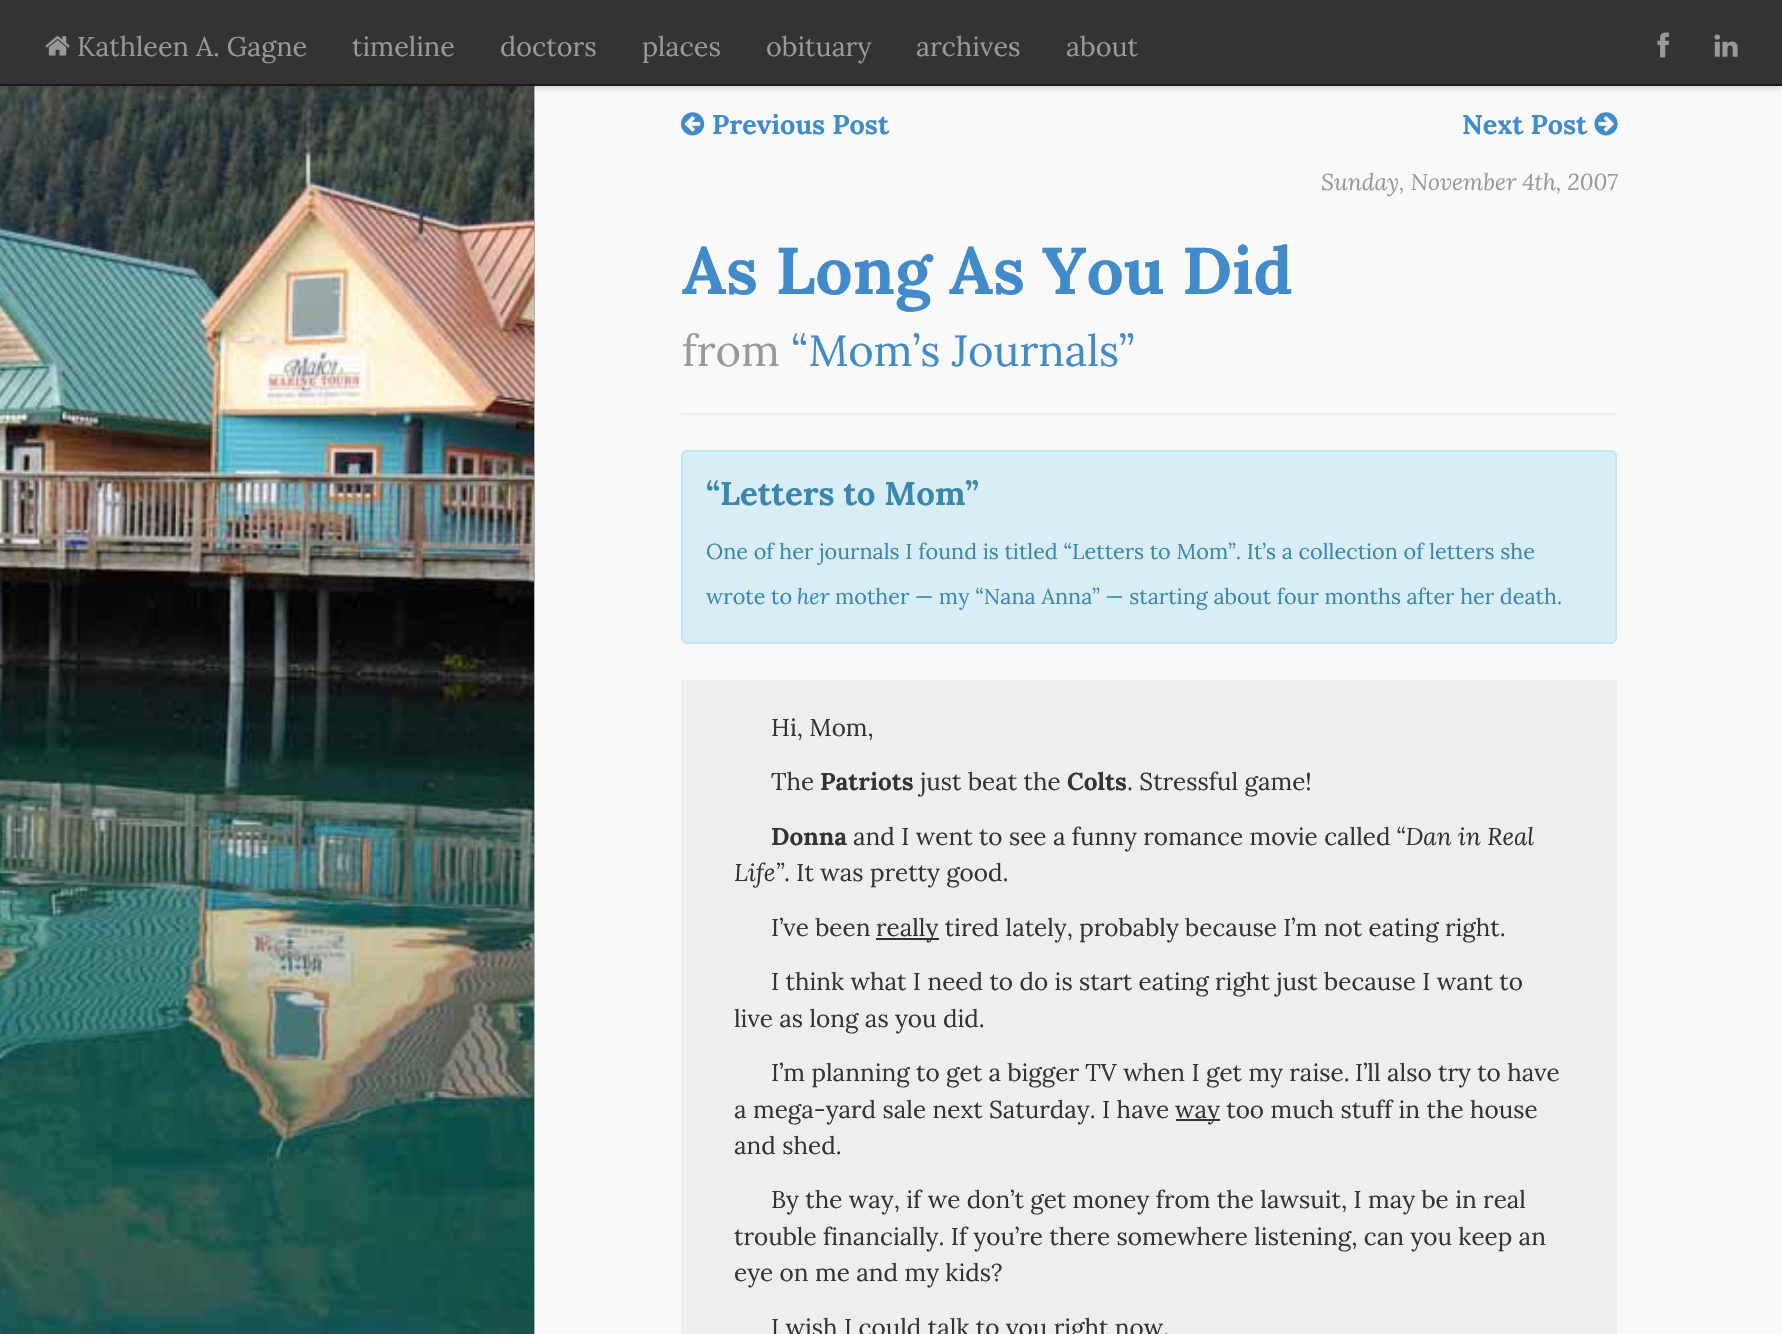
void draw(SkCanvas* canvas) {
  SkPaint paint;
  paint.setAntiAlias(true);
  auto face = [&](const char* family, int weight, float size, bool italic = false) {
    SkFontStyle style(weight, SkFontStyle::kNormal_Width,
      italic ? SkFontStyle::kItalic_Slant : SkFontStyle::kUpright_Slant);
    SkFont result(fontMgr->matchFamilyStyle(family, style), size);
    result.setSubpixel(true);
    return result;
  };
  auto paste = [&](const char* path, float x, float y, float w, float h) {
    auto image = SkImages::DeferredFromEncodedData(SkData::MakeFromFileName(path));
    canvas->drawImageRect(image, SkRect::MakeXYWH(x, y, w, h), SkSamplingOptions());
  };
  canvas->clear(0xfff9f9f9);
  paint.setColor(0xffaeaeae);
  canvas->drawRect(SkRect::MakeXYWH(534, 86, 1, 1248), paint);
  paste("img/4.png", 0, 86, 534, 1248);
  paint.setColor(0x33000000);
  paint.setMaskFilter(SkMaskFilter::MakeBlur(kNormal_SkBlurStyle, 3));
  canvas->drawRect(SkRect::MakeXYWH(0, 2, 1782, 85), paint);
  paint.setMaskFilter(nullptr);
  paint.setColor(0xff333333);
  canvas->drawRect(SkRect::MakeXYWH(0, 0, 1782, 84), paint);
  paint.setColor(0xff1a1a1a);
  canvas->drawRect(SkRect::MakeXYWH(0, 84, 1782, 2), paint);
  paste("img/1.png", 45, 36, 25, 20);
  paste("img/2.png", 1657, 32, 13, 26);
  paste("img/3.png", 1714, 34, 24, 23);
  paste("img/5.png", 681, 112, 24, 24);
  paste("img/6.png", 1594, 112, 24, 24);
  paint.setColor(0xffeeeeee);
  canvas->drawRect(SkRect::MakeXYWH(681, 413, 936, 2), paint);
  paint.setColor(0xffd9edf7);
  canvas->drawRoundRect(SkRect::MakeXYWH(682, 451, 934, 192), 5, 5, paint);
  paint.setStroke(true);
  paint.setStrokeWidth(2);
  paint.setColor(0xffbce8f1);
  canvas->drawRoundRect(SkRect::MakeXYWH(682, 451, 934, 192), 5, 5, paint);
  paint.setStroke(false);
  {
    const struct { float x, y, w, h; SkColor color; } items[] = {
      {681, 680, 936, 654, 0xffeeeeee},
      {876, 938, 63, 2, 0xff333333},
      {1176, 1119, 44, 2, 0xff333333},
    };
    for (auto [x, y, w, h, color] : items) {
      paint.setColor(color);
      canvas->drawRect(SkRect::MakeXYWH(x, y, w, h), paint);
    }
  }
  auto f0 = face("Lora", 400, 27);
  paint.setColor(0xff999999);
  {
    const struct { const char* s; float x, y; } items[] = {
      {"Kathleen A. Gagne", 77, 56},
      {"timeline", 352, 56},
      {"doctors", 500, 56},
      {"places", 642, 56},
      {"obituary", 766, 56},
      {"archives", 916, 56},
      {"about", 1066, 56},
    };
    for (auto [s, x, y] : items) {
      canvas->drawString(s, x, y, f0, paint);
    }
  }
  auto f1 = face("Lora", 700, 27);
  paint.setColor(0xff428bca);
  canvas->drawString("Previous Post", 712, 134, f1, paint);
  canvas->drawString("Next Post", 1462, 134, f1, paint);
  auto f2 = face("Lora", 400, 23, true);
  paint.setColor(0xff999999);
  canvas->drawString("Sunday, November 4th, 2007", 1321, 190, f2, paint);
  auto f3 = face("Lora", 700, 66);
  paint.setColor(0xff428bca);
  canvas->drawString("As Long As You Did", 682, 294, f3, paint);
  auto f4 = face("Lora", 400, 43.5f);
  paint.setColor(0xff999999);
  canvas->drawString("from", 682, 366, f4, paint);
  paint.setColor(0xff428bca);
  canvas->drawString("“Mom’s Journals”", 791, 366, f4, paint);
  auto f5 = face("Lora", 700, 33);
  paint.setColor(0xff3a87ad);
  canvas->drawString("“Letters to Mom”", 706, 505, f5, paint);
  auto f6 = face("Lora", 400, 21.6f);
  canvas->drawString("One of her journals I found is titled “Letters to Mom”. It’s a collection of letters she", 706, 559, f6, paint);
  canvas->drawString("wrote to", 706, 604, f6, paint);
  auto f7 = face("Lora", 400, 21.6f, true);
  canvas->drawString("her", 797, 604, f7, paint);
  canvas->drawString("mother — my “Nana Anna” — starting about four months after her death.", 835, 604, f6, paint);
  auto f8 = face("Lora", 400, 24.3f);
  paint.setColor(0xff333333);
  canvas->drawString("Hi, Mom,", 771, 736, f8, paint);
  canvas->drawString("The", 771, 790, f8, paint);
  auto f9 = face("Lora", 700, 24.3f);
  canvas->drawString("Patriots", 820, 790, f9, paint);
  canvas->drawString("just beat the", 920, 790, f8, paint);
  canvas->drawString("Colts", 1067, 790, f9, paint);
  canvas->drawString(". Stressful game!", 1127, 790, f8, paint);
  canvas->drawString("Donna", 771, 845, f9, paint);
  canvas->drawString("and I went to see a funny romance movie called", 853, 845, f8, paint);
  auto f10 = face("Lora", 400, 24.3f, true);
  canvas->drawString("“Dan in Real", 1396, 845, f10, paint);
  canvas->drawString("Life”", 734, 881, f10, paint);
  {
    const struct { const char* s; float x, y; } items[] = {
      {". It was pretty good.", 784, 881},
      {"I’ve been", 771, 936},
      {"really tired lately, probably because I’m not eating right.", 876, 936},
      {"I think what I need to do is start eating right just because I want to", 771, 990},
      {"live as long as you did.", 734, 1027},
      {"I’m planning to get a bigger TV when I get my raise.", 771, 1081},
      {"I’ll also try to have", 1355, 1081},
      {"a mega-yard sale next Saturday. I have", 734, 1118},
      {"way too much stuff in the house", 1175, 1118},
      {"and shed.", 734, 1154},
      {"By the way, if we don’t get money from the lawsuit, I may be in real", 771, 1208},
      {"trouble financially. If you’re there somewhere listening, can you keep an", 734, 1245},
      {"eye on me and my kids?", 734, 1281},
      {"I wish I could talk to you right now.", 771, 1336},
    };
    for (auto [s, x, y] : items) {
      canvas->drawString(s, x, y, f8, paint);
    }
  }
}
